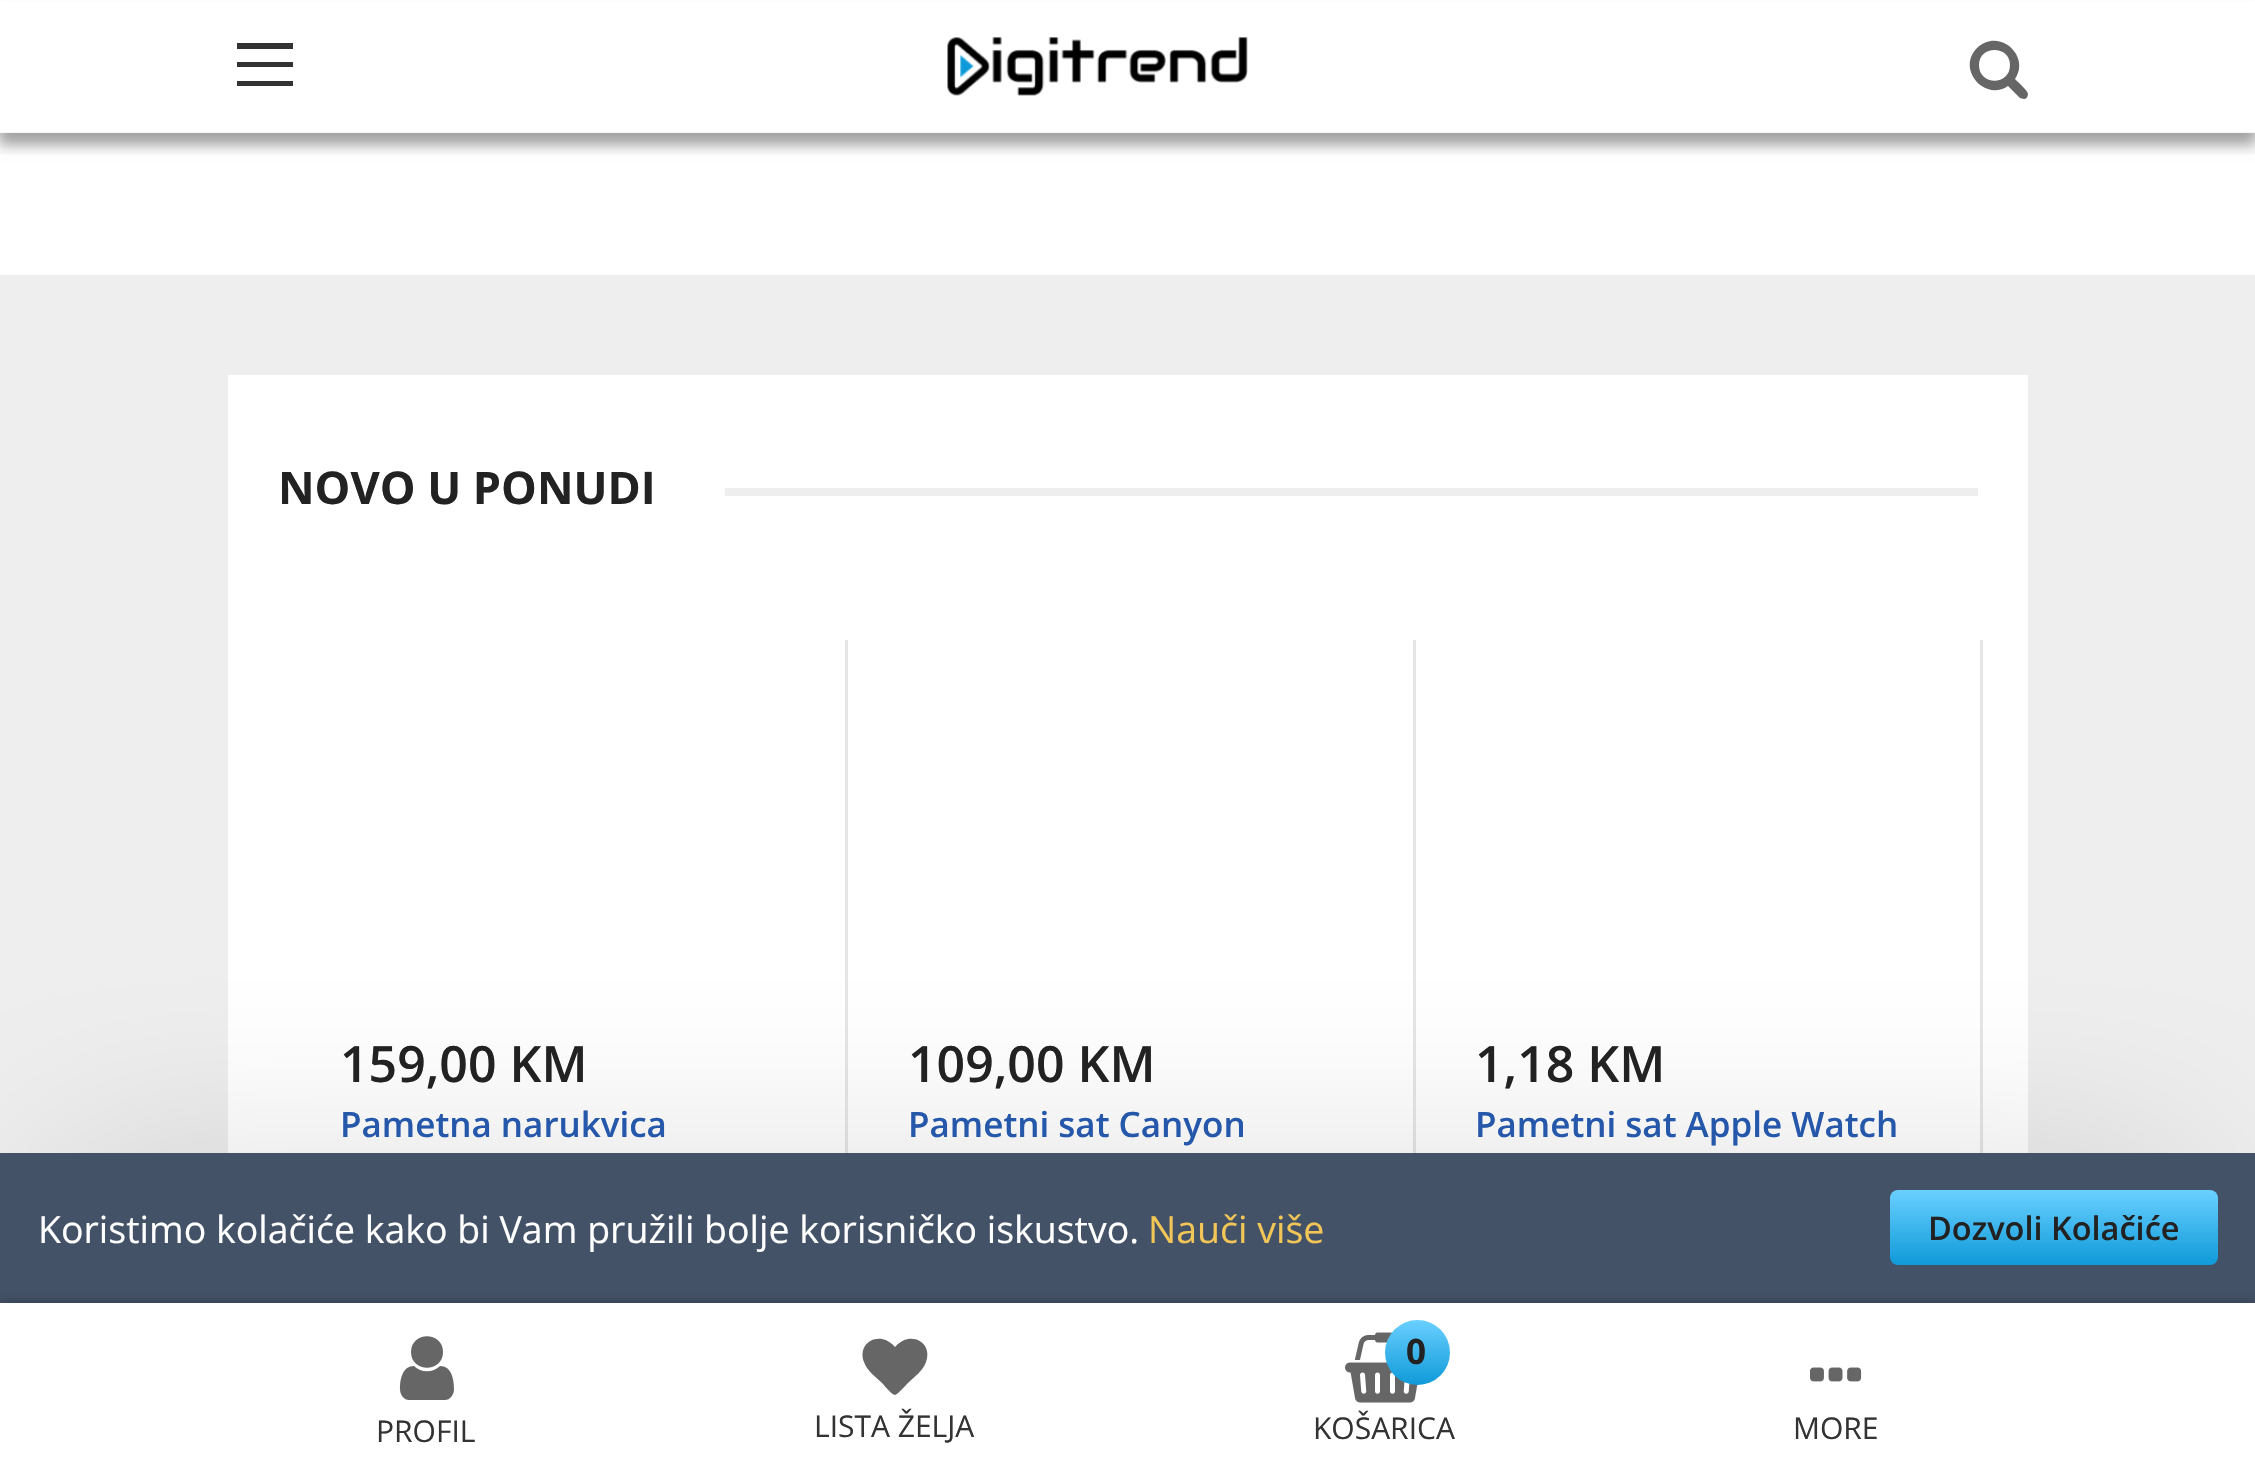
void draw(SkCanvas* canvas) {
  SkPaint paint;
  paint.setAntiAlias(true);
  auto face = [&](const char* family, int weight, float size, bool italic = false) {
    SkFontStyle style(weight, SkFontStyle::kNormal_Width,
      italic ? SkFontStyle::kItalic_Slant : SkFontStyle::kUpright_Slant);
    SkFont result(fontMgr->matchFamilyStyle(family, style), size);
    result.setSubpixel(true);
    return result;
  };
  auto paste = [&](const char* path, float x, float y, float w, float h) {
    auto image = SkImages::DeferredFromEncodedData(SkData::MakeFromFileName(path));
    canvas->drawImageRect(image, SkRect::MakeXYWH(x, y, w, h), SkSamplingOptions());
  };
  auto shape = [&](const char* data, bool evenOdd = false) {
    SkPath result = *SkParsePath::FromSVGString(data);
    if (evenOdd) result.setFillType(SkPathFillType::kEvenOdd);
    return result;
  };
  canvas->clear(0xffffffff);
  {
    const struct { float x, y, w, h; SkColor color; } items[] = {
      {0, 275, 2255, 878, 0xffeeeeee},
      {228, 375, 1800, 778, 0xffffffff},
      {725, 488, 1253, 8, 0xffeeeeee},
      {845, 640, 3, 513, 0xffe6e6e6},
      {1413, 640, 3, 513, 0xffe6e6e6},
      {1980, 640, 3, 513, 0xffe6e6e6},
    };
    for (auto [x, y, w, h, color] : items) {
      paint.setColor(color);
      canvas->drawRect(SkRect::MakeXYWH(x, y, w, h), paint);
    }
  }
  paint.setColor(0x4d000000);
  paint.setMaskFilter(SkMaskFilter::MakeBlur(kNormal_SkBlurStyle, 6));
  canvas->drawRect(SkRect::MakeXYWH(0, 13, 2255, 132), paint);
  paint.setMaskFilter(nullptr);
  paint.setColor(0xffffffff);
  canvas->drawRect(SkRect::MakeXYWH(0, 2, 2255, 131), paint);
  paste("img/1.png", 0, 132, 2255, 22);
  paint.setColor(0xff333333);
  canvas->drawPath(shape("M237 43V49H293V43ZM237 67H293V62H237ZM237 86H293V81H237Z"), paint);
  paste("img/2.png", 947, 37, 301, 59);
  paint.setColor(0xff666666);
  canvas->drawPath(shape("M2010 65C2010 86 1979 86 1979 65C1979 45 2010 45 2010 65ZM2028 94C2028 91 2018 82 2015 79C2031 56 1999 27 1977 48C1956 69 1985 102 2008 86L2020 98C2021 98 2022 99 2024 99C2026 99 2028 97 2028 94Z"), paint);
  paint.setColor(0xff000000);
  paint.setMaskFilter(SkMaskFilter::MakeBlur(kNormal_SkBlurStyle, 102.5f));
  canvas->drawRect(SkRect::MakeXYWH(60, 1223, 2125, 20), paint);
  paint.setMaskFilter(nullptr);
  paint.setColor(0xff445268);
  canvas->drawRect(SkRect::MakeXYWH(0, 1153, 2255, 150), paint);
  paint.setColor(0x4d000000);
  paint.setMaskFilter(SkMaskFilter::MakeBlur(kNormal_SkBlurStyle, 6));
  canvas->drawRect(SkRect::MakeXYWH(0, 1303, 2255, 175), paint);
  paint.setMaskFilter(nullptr);
  paint.setColor(0xffffffff);
  canvas->drawRect(SkRect::MakeXYWH(0, 1303, 2255, 174), paint);
  paint.setColor(0xff666666);
  canvas->drawPath(shape("M454 1389C454 1378 451 1366 440 1366C433 1373 421 1373 414 1366C403 1366 400 1378 400 1389C400 1395 404 1400 409 1400H445C450 1400 454 1395 454 1389ZM443 1352C443 1331 411 1331 411 1352C411 1373 443 1373 443 1352Z"), paint);
  canvas->drawPath(shape("M895 1395C897 1395 906 1385 908 1383C914 1377 923 1371 926 1362C931 1349 922 1337 908 1339C903 1340 898 1343 895 1347C892 1343 887 1340 882 1339C868 1337 859 1349 864 1362C867 1371 876 1377 882 1383C884 1385 892 1395 895 1395Z"), paint);
  paste("img/3.png", 1345, 1332, 73, 71);
  {
    const SkColor colors[] = {0xff0f9ad9, 0xff6ad0ff};
    const float stops[] = {0, 1};
    const SkPoint ends[] = {{1418, 1385}, {1418, 1320}};
    paint.setShader(SkGradientShader::MakeLinear(ends, colors, stops, 2, SkTileMode::kClamp));
    paint.setAlpha(255);
  }
  canvas->drawCircle(1417.5f, 1352.5f, 32.5f, paint);
  paste("img/4.png", 1810, 1367, 52, 15);
  {
    const SkColor colors[] = {0xff0f9ad9, 0xff6ad0ff};
    const float stops[] = {0, 1};
    const SkPoint ends[] = {{2054, 1265}, {2054, 1190}};
    paint.setShader(SkGradientShader::MakeLinear(ends, colors, stops, 2, SkTileMode::kClamp));
    paint.setAlpha(255);
  }
  canvas->drawRoundRect(SkRect::MakeXYWH(1890, 1190, 328, 75), 8, 8, paint);
  auto f0 = face("Open Sans", 700, 45);
  paint.setShader(nullptr);
  paint.setColor(0xff222222);
  canvas->drawString("NOVO U PONUDI", 278, 504, f0, paint);
  auto f1 = face("Open Sans", 600, 50);
  canvas->drawString("159,00 KM", 340, 1082, f1, paint);
  auto f2 = face("Open Sans", 600, 35);
  paint.setColor(0xff2557aa);
  canvas->drawString("Pametna narukvica", 340, 1137, f2, paint);
  paint.setColor(0xff222222);
  canvas->drawString("109,00 KM", 908, 1082, f1, paint);
  paint.setColor(0xff2557aa);
  canvas->drawString("Pametni sat Canyon", 908, 1137, f2, paint);
  paint.setColor(0xff222222);
  canvas->drawString("1,18 KM", 1475, 1082, f1, paint);
  paint.setColor(0xff2557aa);
  canvas->drawString("Pametni sat Apple Watch", 1475, 1137, f2, paint);
  auto f3 = face("Open Sans", 400, 30);
  paint.setColor(0xff333333);
  canvas->drawString("PROFIL", 376, 1442, f3, paint);
  canvas->drawString("LISTA ŽELJA", 814, 1437, f3, paint);
  auto f4 = face("Open Sans", 700, 35);
  paint.setColor(0xff222222);
  canvas->drawString("0", 1406, 1364, f4, paint);
  paint.setColor(0xff333333);
  canvas->drawString("KOŠARICA", 1313, 1439, f3, paint);
  canvas->drawString("MORE", 1793, 1439, f3, paint);
  auto f5 = face("Open Sans", 400, 37.5f);
  paint.setColor(0xffffffff);
  canvas->drawString("Koristimo kolačiće kako bi Vam pružili bolje korisničko iskustvo.", 38, 1243, f5, paint);
  paint.setColor(0xfff2c557);
  canvas->drawString("Nauči više", 1148, 1243, f5, paint);
  auto f6 = face("Open Sans", 600, 32.5f);
  paint.setColor(0xff222222);
  canvas->drawString("Dozvoli Kolačiće", 1928, 1240, f6, paint);
}
